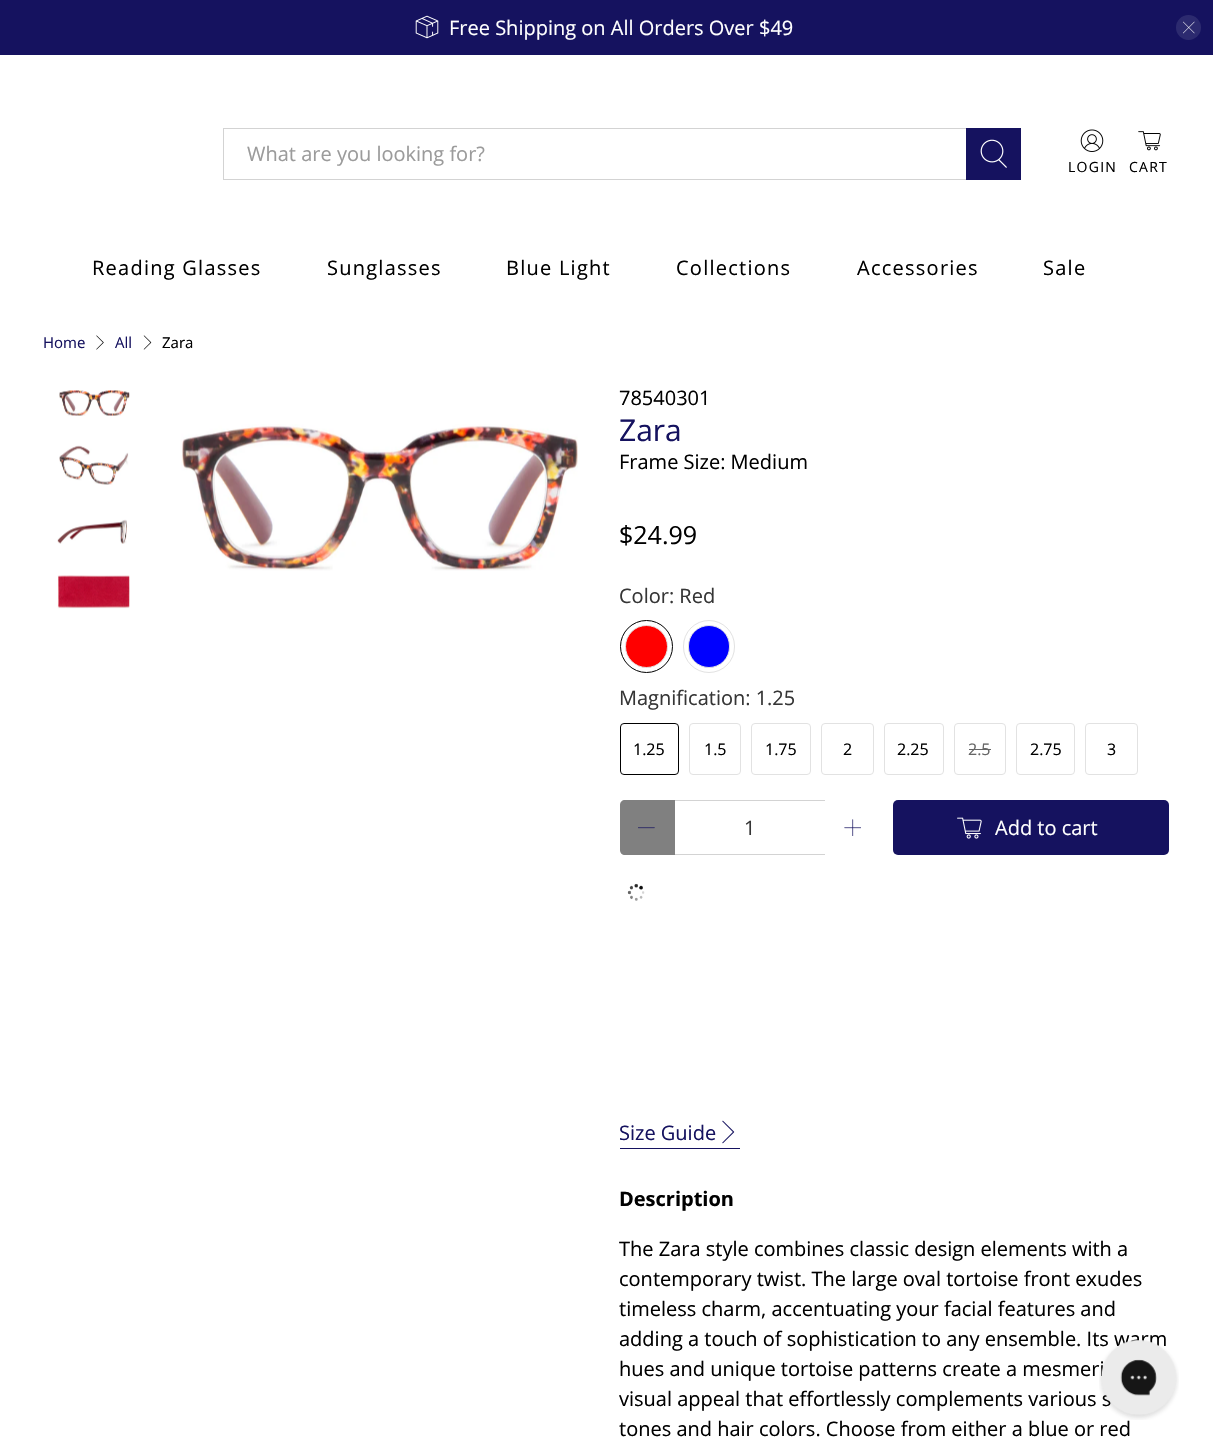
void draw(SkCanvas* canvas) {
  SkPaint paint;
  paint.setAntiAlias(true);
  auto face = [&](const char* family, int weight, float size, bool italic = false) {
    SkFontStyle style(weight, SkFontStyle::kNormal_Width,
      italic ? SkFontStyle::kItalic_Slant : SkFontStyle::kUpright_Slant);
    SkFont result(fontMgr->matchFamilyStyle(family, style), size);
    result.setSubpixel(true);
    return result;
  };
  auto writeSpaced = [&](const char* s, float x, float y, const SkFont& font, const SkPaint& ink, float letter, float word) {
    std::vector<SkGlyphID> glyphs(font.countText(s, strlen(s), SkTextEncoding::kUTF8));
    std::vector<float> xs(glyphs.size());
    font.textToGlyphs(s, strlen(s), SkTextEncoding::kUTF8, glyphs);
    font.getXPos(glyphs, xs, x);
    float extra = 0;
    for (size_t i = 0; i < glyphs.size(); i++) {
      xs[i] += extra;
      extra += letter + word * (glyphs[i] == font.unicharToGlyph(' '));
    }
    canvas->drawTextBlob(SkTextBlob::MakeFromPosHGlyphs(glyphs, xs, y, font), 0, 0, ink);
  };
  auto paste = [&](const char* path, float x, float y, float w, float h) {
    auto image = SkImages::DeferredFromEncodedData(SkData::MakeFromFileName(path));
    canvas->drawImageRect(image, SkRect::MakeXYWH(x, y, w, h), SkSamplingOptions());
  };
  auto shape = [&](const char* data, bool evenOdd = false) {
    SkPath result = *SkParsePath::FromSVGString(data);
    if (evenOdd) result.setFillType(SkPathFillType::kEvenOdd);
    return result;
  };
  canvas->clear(0xffffffff);
  paint.setColor(0xff15125f);
  canvas->drawRect(SkRect::MakeXYWH(0, 0, 1213, 55), paint);
  paste("img/1.png", 415, 15, 24, 24);
  paint.setColor(0xff2c2a6f);
  canvas->drawCircle(1188.5f, 27.5f, 12.5f, paint);
  paste("img/2.png", 1183, 21, 12, 13);
  paint.setStroke(true);
  paint.setStrokeWidth(1);
  paint.setColor(0xffd3d3d3);
  canvas->drawRect(SkRect::MakeXYWH(223.5f, 128.5f, 744, 51), paint);
  paint.setStroke(false);
  paint.setColor(0xff15125f);
  canvas->drawRect(SkRect::MakeXYWH(966, 128, 55, 52), paint);
  paste("img/3.png", 980, 139, 27, 29);
  paste("img/4.png", 1080, 129, 24, 23);
  paste("img/5.png", 1138, 131, 23, 20);
  paste("img/6.png", 96, 335, 8, 15);
  paste("img/7.png", 143, 335, 9, 15);
  paste("img/8.png", 59, 390, 71, 26);
  paste("img/9.png", 59, 445, 70, 40);
  paste("img/10.png", 57, 519, 70, 25);
  paste("img/11.png", 57, 575, 73, 34);
  paste("img/12.png", 181, 424, 397, 147);
  paint.setStroke(true);
  paint.setColor(0xff000000);
  canvas->drawCircle(646.5f, 646.5f, 26, paint);
  paint.setStroke(false);
  paint.setColor(0xffff0000);
  canvas->drawCircle(646.5f, 646.5f, 21, paint);
  paint.setStroke(true);
  paint.setColor(0xffe2e2e2);
  canvas->drawCircle(646.5f, 646.5f, 21, paint);
  canvas->drawRoundRect(SkRect::MakeXYWH(683.5f, 620.5f, 51, 52), 25.5f, 25.5f, paint);
  paint.setStroke(false);
  paint.setColor(0xff0000ff);
  canvas->drawRoundRect(SkRect::MakeXYWH(688.5f, 625.5f, 41, 42), 20.5f, 20.5f, paint);
  paint.setStroke(true);
  paint.setColor(0xffe2e2e2);
  canvas->drawRoundRect(SkRect::MakeXYWH(688.5f, 625.5f, 41, 42), 20.5f, 20.5f, paint);
  paint.setColor(0xff000000);
  canvas->drawRoundRect(SkRect::MakeXYWH(620.5f, 723.5f, 58, 51), 3.5f, 3.5f, paint);
  paint.setColor(0xffe2e2e2);
  canvas->drawRoundRect(SkRect::MakeXYWH(689.5f, 723.5f, 51, 51), 3.5f, 3.5f, paint);
  canvas->drawRoundRect(SkRect::MakeXYWH(751.5f, 723.5f, 59, 51), 3.5f, 3.5f, paint);
  canvas->drawRoundRect(SkRect::MakeXYWH(821.5f, 723.5f, 52, 51), 3.5f, 3.5f, paint);
  canvas->drawRoundRect(SkRect::MakeXYWH(884.5f, 723.5f, 59, 51), 3.5f, 3.5f, paint);
  canvas->drawRoundRect(SkRect::MakeXYWH(954.5f, 723.5f, 51, 51), 3.5f, 3.5f, paint);
  paint.setStroke(false);
  paint.setColor(0xff666666);
  canvas->drawRect(SkRect::MakeXYWH(969, 749, 22, 1), paint);
  paint.setStroke(true);
  paint.setColor(0xffe2e2e2);
  canvas->drawRoundRect(SkRect::MakeXYWH(1016.5f, 723.5f, 58, 51), 3.5f, 3.5f, paint);
  canvas->drawRoundRect(SkRect::MakeXYWH(1085.5f, 723.5f, 52, 51), 3.5f, 3.5f, paint);
  paint.setStroke(false);
  paint.setColor(0xff808080);
  canvas->drawPath(shape("M625 800H675V855H625C622 855 620 853 620 850V805C620 802 622 800 625 800Z"), paint);
  paste("img/13.png", 638, 827, 17, 2);
  paint.setColor(0xffd3d3d3);
  canvas->drawRect(SkRect::MakeXYWH(675, 800, 150, 1), paint);
  canvas->drawRect(SkRect::MakeXYWH(675, 854, 150, 1), paint);
  paste("img/14.png", 844, 819, 17, 17);
  paint.setColor(0xff15125f);
  canvas->drawRoundRect(SkRect::MakeXYWH(893, 800, 276, 55), 5, 5, paint);
  paste("img/15.png", 957, 817, 25, 22);
  paste("img/16.png", 627, 883, 18, 18);
  canvas->drawRect(SkRect::MakeXYWH(620, 1148, 120, 1), paint);
  paste("img/17.png", 722, 1120, 13, 24);
  auto f0 = face("Open Sans", 400, 20);
  paint.setColor(0xffffffff);
  canvas->drawString("Free Shipping on All Orders Over $49", 449, 35, f0, paint);
  paint.setColor(0xff9b9b9b);
  canvas->drawString("What are you looking for?", 247, 161, f0, paint);
  auto f1 = face("Open Sans", 400, 14);
  paint.setColor(0xff000000);
  writeSpaced("LOGIN", 1068, 172, f1, paint, 1.25f, 0);
  writeSpaced("CART", 1129, 172, f1, paint, 1.25f, 0);
  {
    const struct { const char* s; float x, y; } items[] = {
      {"Reading Glasses", 92, 275},
      {"Sunglasses", 327, 275},
      {"Blue Light", 506, 275},
      {"Collections", 676, 275},
      {"Accessories", 857, 275},
      {"Sale", 1043, 275},
    };
    for (auto [s, x, y] : items) {
      writeSpaced(s, x, y, f0, paint, 1.25f, 0);
    }
  }
  auto f2 = face("Open Sans", 400, 15);
  paint.setColor(0xff15125f);
  canvas->drawString("Home", 43, 348, f2, paint);
  canvas->drawString("All", 115, 348, f2, paint);
  paint.setColor(0xff000000);
  canvas->drawString("Zara", 162, 348, f2, paint);
  canvas->drawString("78540301", 619, 405, f0, paint);
  auto f3 = face("Open Sans", 400, 30);
  paint.setColor(0xff15125f);
  canvas->drawString("Zara", 619, 441, f3, paint);
  paint.setColor(0xff000000);
  canvas->drawString("Frame Size: Medium", 619, 469, f0, paint);
  auto f4 = face("Open Sans", 400, 25);
  canvas->drawString("$24.99", 619, 544, f4, paint);
  paint.setColor(0xff363636);
  canvas->drawString("Color: Red", 619, 603, f0, paint);
  canvas->drawString("Magnification: 1.25", 619, 705, f0, paint);
  auto f5 = face("Open Sans", 400, 16);
  paint.setColor(0xff000000);
  {
    const struct { const char* s; float x, y; } items[] = {
      {"1.25", 633, 755},
      {"1.5", 704, 755},
      {"1.75", 765, 755},
      {"2", 843, 755},
      {"2.25", 897, 755},
    };
    for (auto [s, x, y] : items) {
      canvas->drawString(s, x, y, f5, paint);
    }
  }
  paint.setColor(0xff666666);
  canvas->drawString("2.5", 968, 755, f5, paint);
  paint.setColor(0xff000000);
  canvas->drawString("2.75", 1030, 755, f5, paint);
  canvas->drawString("3", 1107, 755, f5, paint);
  paint.setColor(0xff363636);
  canvas->drawString("1", 744, 835, f0, paint);
  paint.setColor(0xffffffff);
  canvas->drawString("Add to cart", 995, 835, f0, paint);
  paint.setColor(0xff15125f);
  canvas->drawString("Size Guide", 619, 1140, f0, paint);
  auto f6 = face("Open Sans", 700, 20);
  paint.setColor(0xff000000);
  canvas->drawString("Description", 619, 1206, f6, paint);
  {
    const struct { const char* s; float x, y; } items[] = {
      {"The Zara style combines classic design elements with a", 619, 1256},
      {"contemporary twist. The large oval tortoise front exudes", 619, 1286},
      {"timeless charm, accentuating your facial features and", 619, 1316},
      {"adding a touch of sophistication to any ensemble. Its warm", 619, 1346},
      {"hues and unique tortoise patterns create a mesmeri", 619, 1376},
      {"visual appeal that effortlessly complements various s", 619, 1406},
      {"tones and hair colors. Choose from either a blue or red", 619, 1436},
    };
    for (auto [s, x, y] : items) {
      canvas->drawString(s, x, y, f0, paint);
    }
  }
  paste("img/18.png", 1099, 1339, 80, 81);
}
